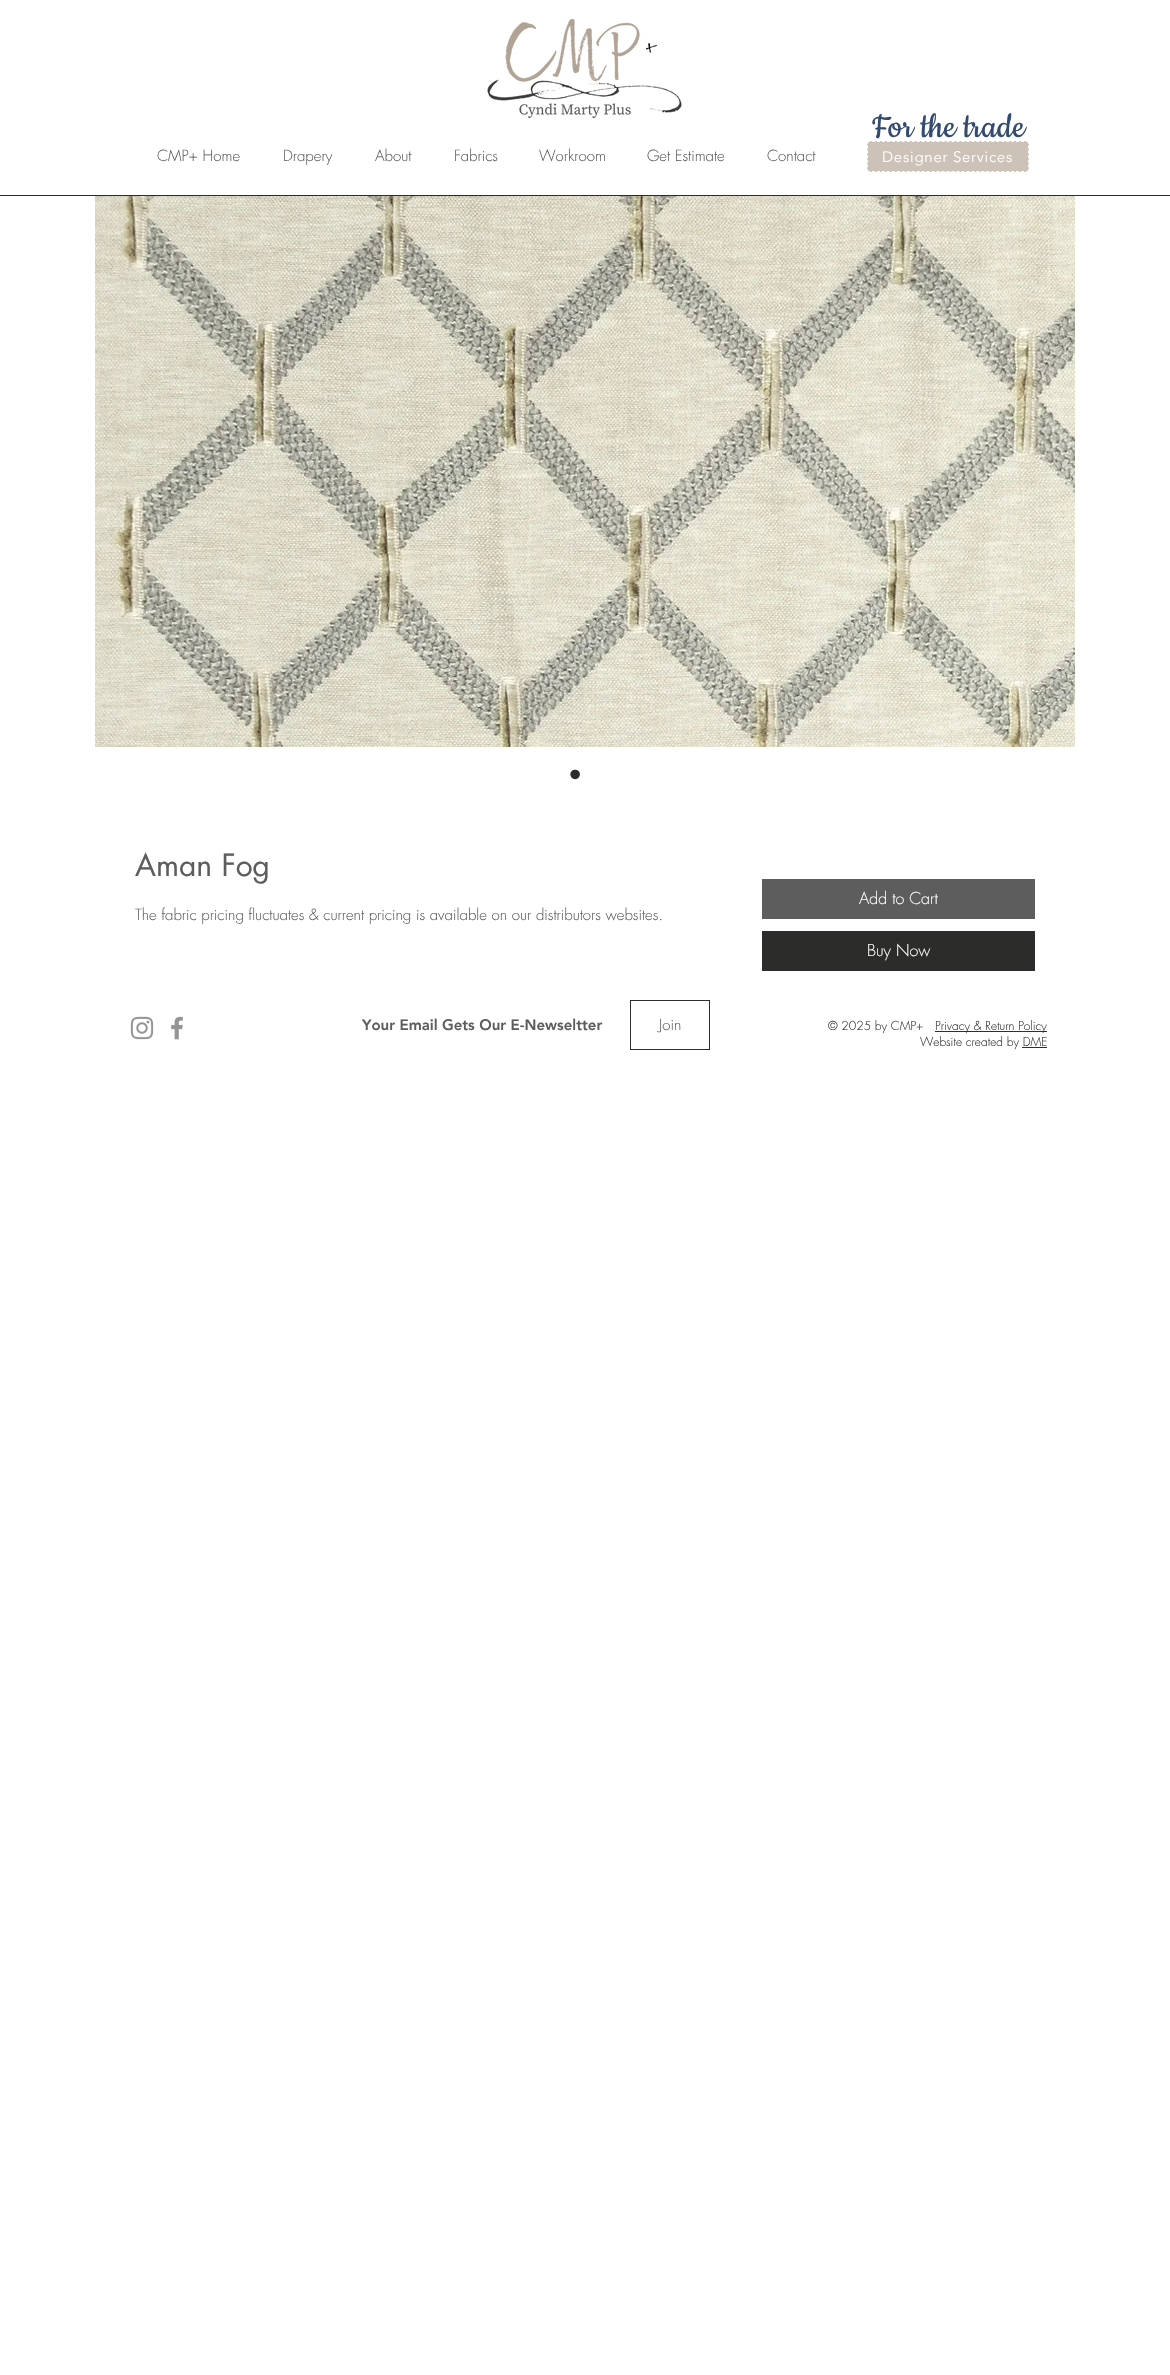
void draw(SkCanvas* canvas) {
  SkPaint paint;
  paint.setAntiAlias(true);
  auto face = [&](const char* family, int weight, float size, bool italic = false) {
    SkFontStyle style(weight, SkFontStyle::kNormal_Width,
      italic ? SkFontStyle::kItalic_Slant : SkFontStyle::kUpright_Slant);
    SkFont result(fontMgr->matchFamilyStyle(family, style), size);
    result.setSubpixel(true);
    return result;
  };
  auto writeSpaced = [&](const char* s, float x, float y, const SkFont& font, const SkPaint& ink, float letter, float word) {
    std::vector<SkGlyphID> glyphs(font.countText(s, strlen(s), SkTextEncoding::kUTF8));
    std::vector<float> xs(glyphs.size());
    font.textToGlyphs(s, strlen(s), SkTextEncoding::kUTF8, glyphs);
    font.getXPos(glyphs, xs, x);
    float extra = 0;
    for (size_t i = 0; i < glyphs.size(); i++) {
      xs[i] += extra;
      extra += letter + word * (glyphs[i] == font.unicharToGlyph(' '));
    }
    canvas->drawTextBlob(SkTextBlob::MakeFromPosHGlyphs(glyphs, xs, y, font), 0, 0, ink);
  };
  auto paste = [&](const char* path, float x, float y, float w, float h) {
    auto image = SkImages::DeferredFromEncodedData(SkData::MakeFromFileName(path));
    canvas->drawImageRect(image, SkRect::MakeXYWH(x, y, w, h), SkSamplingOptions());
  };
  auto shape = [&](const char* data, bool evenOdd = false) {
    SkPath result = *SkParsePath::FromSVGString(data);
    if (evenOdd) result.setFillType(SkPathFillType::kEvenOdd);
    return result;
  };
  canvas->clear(0xffffffff);
  paste("img/1.png", 487, 19, 195, 100);
  paint.setColor(0xffcdc2b7);
  canvas->drawRect(SkRect::MakeXYWH(867, 141, 162, 31), paint);
  paint.setStroke(true);
  paint.setStrokeWidth(1);
  paint.setColor(0xffffffff);
  paint.setPathEffect(SkDashPathEffect::Make({{3, 1.97f}}, 0));
  canvas->drawPath(shape("M867 141.5H1029"), paint);
  paint.setPathEffect(nullptr);
  paint.setPathEffect(SkDashPathEffect::Make({{3, 1.67f}}, 0));
  canvas->drawPath(shape("M1028.5 141V172"), paint);
  paint.setPathEffect(nullptr);
  paint.setPathEffect(SkDashPathEffect::Make({{3, 1.97f}}, 0));
  canvas->drawPath(shape("M867 171.5H1029"), paint);
  paint.setPathEffect(nullptr);
  paint.setPathEffect(SkDashPathEffect::Make({{3, 1.67f}}, 0));
  canvas->drawPath(shape("M867.5 141V172"), paint);
  paint.setPathEffect(nullptr);
  paint.setStroke(false);
  paint.setColor(0xff2c2c2b);
  canvas->drawRect(SkRect::MakeXYWH(0, 195, 1170, 1), paint);
  paste("img/2.png", 95, 196, 980, 551);
  paint.setColor(0xff5e5d5d);
  canvas->drawRect(SkRect::MakeXYWH(762, 879, 273, 40), paint);
  paint.setColor(0xff2c2c2b);
  canvas->drawRect(SkRect::MakeXYWH(762, 931, 273, 40), paint);
  paste("img/3.png", 130, 1016, 24, 24);
  paste("img/4.png", 171, 1016, 12, 24);
  paint.setStroke(true);
  canvas->drawRect(SkRect::MakeXYWH(630.5f, 1000.5f, 79, 49), paint);
  paint.setStroke(false);
  paint.setColor(0xff2f2e2e);
  canvas->drawRect(SkRect::MakeXYWH(935, 1031, 112, 1), paint);
  auto f0 = face("Cookie", 400, 40);
  paint.setColor(0xff344b71);
  canvas->drawString("For the trade", 872, 137, f0, paint);
  auto f1 = face("futura", 300, 15);
  paint.setColor(0xff5e5d5d);
  {
    const struct { const char* s; float x, y; } items[] = {
      {"CMP+ Home", 157, 161},
      {"Drapery", 283, 161},
      {"About", 375, 161},
      {"Fabrics", 454, 161},
      {"Workroom", 539, 161},
      {"Get Estimate", 647, 161},
      {"Contact", 767, 161},
    };
    for (auto [s, x, y] : items) {
      canvas->drawString(s, x, y, f1, paint);
    }
  }
  auto f2 = face("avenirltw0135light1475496", 300, 15);
  paint.setColor(0xffffffff);
  writeSpaced("Designer Services", 882, 162, f2, paint, 0.75f, 0);
  auto f3 = face("Liberation Sans", 400, 35);
  paint.setColor(0xff2c2c2b);
  canvas->drawString("•", 569, 786, f3, paint);
  auto f4 = face("futura", 400, 30);
  paint.setColor(0xff5e5d5d);
  canvas->drawString("Aman Fog", 135, 876, f4, paint);
  canvas->drawString("The fabric pricing fluctuates & current pricing is available on our distributors websites.", 135, 920, f1, paint);
  auto f5 = face("futura", 300, 16);
  paint.setColor(0xffffffff);
  canvas->drawString("Add to Cart", 859, 904, f5, paint);
  canvas->drawString("Buy Now", 867, 956, f5, paint);
  auto f6 = face("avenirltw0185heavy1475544", 900, 15);
  paint.setColor(0xff5e5d5d);
  canvas->drawString("Your Email Gets Our E-Newseltter", 362, 1030, f6, paint);
  canvas->drawString("Join", 659, 1030, f1, paint);
  auto f7 = face("futura", 300, 12);
  paint.setColor(0xff2c2c2b);
  {
    const struct { const char* s; float x, y; } items[] = {
      {"© 2025 by CMP+", 828, 1030},
      {"Privacy & Return Policy", 935, 1030},
      {"Website created by DME", 920, 1046},
    };
    for (auto [s, x, y] : items) {
      canvas->drawString(s, x, y, f7, paint);
    }
  }
  paint.setColor(0xff2f2e2e);
  canvas->drawRect(SkRect::MakeXYWH(1022, 1047, 25, 1), paint);
}
